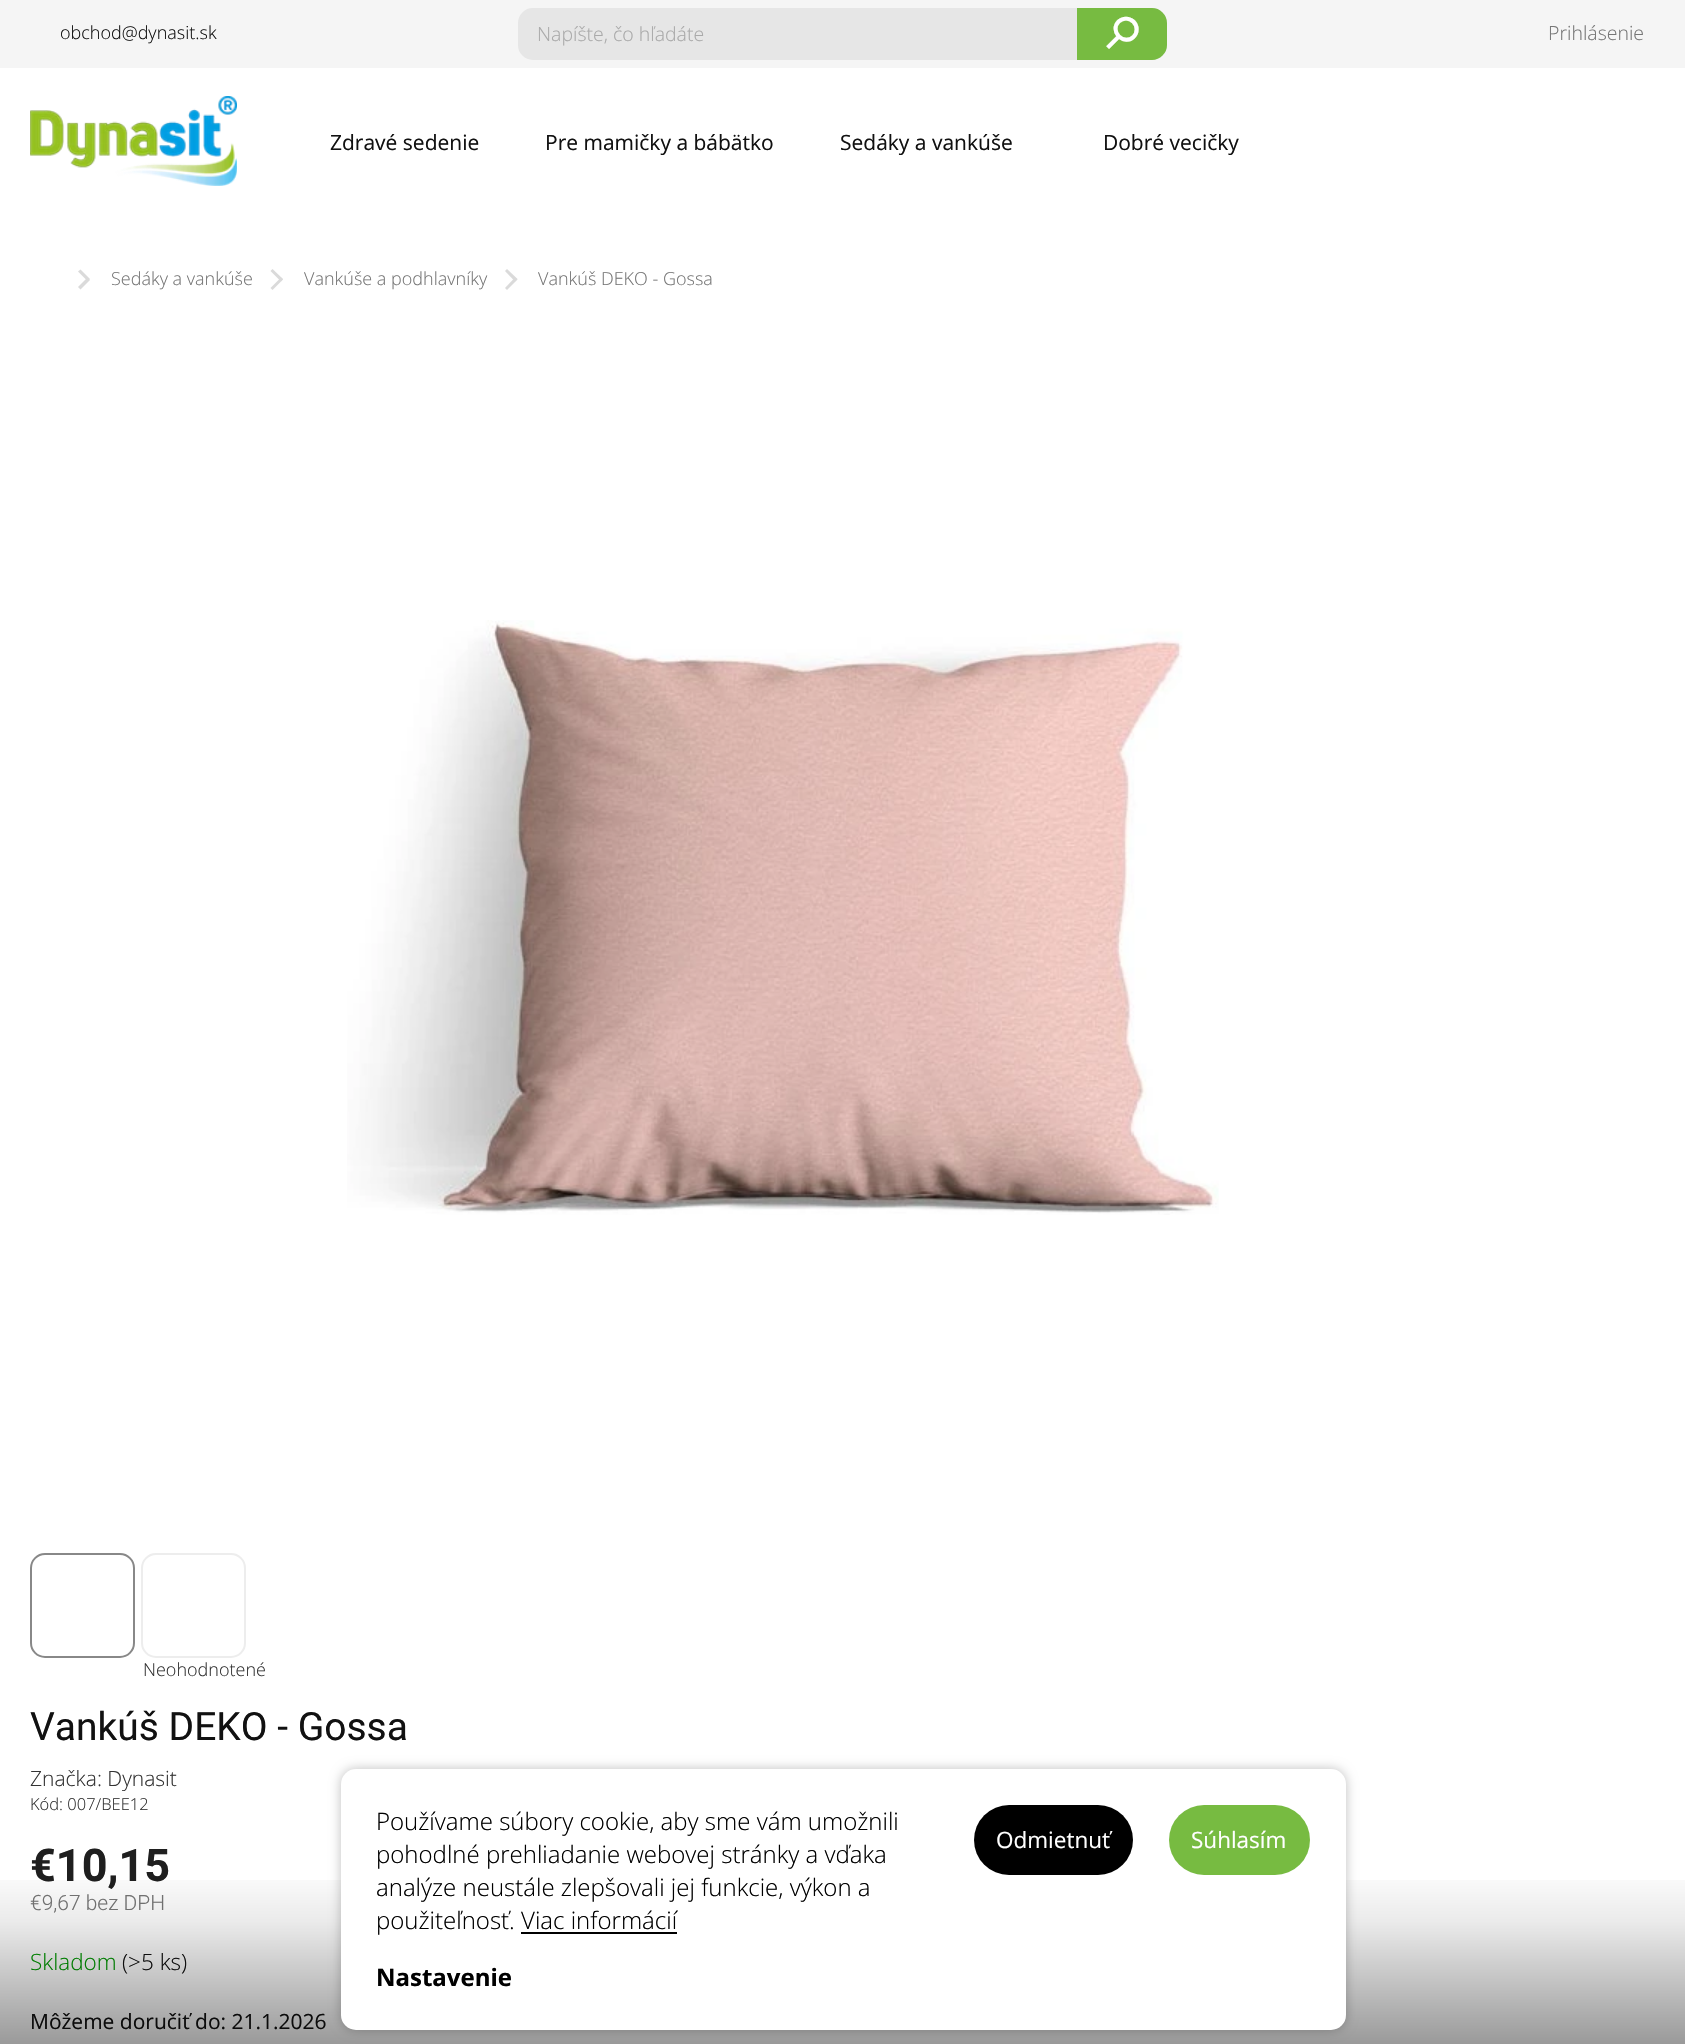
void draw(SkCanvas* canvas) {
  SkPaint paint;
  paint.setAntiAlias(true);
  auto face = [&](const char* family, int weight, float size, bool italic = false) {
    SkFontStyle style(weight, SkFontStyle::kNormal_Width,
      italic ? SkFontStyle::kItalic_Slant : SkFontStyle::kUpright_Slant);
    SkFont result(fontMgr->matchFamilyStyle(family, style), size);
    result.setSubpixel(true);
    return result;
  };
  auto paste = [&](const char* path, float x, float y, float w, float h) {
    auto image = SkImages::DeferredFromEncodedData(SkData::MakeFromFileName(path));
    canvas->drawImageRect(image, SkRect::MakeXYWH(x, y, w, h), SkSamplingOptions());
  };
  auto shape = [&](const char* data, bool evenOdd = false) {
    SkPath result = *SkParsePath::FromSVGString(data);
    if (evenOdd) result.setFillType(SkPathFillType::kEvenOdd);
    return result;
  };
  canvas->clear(0xffffffff);
  paint.setColor(0xfff5f5f5);
  canvas->drawRect(SkRect::MakeXYWH(0, 0, 1685, 68), paint);
  paint.setColor(0xffe6e6e6);
  canvas->drawRoundRect(SkRect::MakeXYWH(519, 9, 647, 50), 14, 14, paint);
  paint.setStroke(true);
  paint.setStrokeWidth(2);
  canvas->drawRoundRect(SkRect::MakeXYWH(519, 9, 647, 50), 14, 14, paint);
  paint.setStroke(false);
  paint.setColor(0xff77bb41);
  canvas->drawPath(shape("M1078 9H1152C1159.5 9 1166 15.5 1166 23V45C1166 52.5 1159.5 59 1152 59H1078Z"), paint);
  paint.setStroke(true);
  canvas->drawPath(shape("M1078 9H1152C1159.5 9 1166 15.5 1166 23V45C1166 52.5 1159.5 59 1152 59H1078Z"), paint);
  paste("img/1.png", 30, 96, 207, 90);
  paint.setStroke(false);
  paint.setColor(0xffdadada);
  canvas->drawPath(shape("M78 271.5L80.5 269.5L90 279L87.5 281Z"), paint);
  canvas->drawPath(shape("M87.5 277.5L90 280L80.5 289.5L78 287Z"), paint);
  canvas->drawPath(shape("M270.5 271L272.5 269L283 279L281 281.5Z"), paint);
  canvas->drawPath(shape("M281 277.5L283 279.5L272.5 290L270.5 288Z"), paint);
  canvas->drawPath(shape("M505 271L507 269L517.5 279L515 281.5Z"), paint);
  canvas->drawPath(shape("M515 277.5L517.5 279.5L507 290L505 288Z"), paint);
  paste("img/2.png", 347, 620, 872, 595);
  paint.setStroke(true);
  paint.setColor(0xff888888);
  canvas->drawRoundRect(SkRect::MakeXYWH(31, 1554, 103, 103), 14, 14, paint);
  paint.setColor(0xffededed);
  canvas->drawRoundRect(SkRect::MakeXYWH(142, 1554, 103, 103), 14, 14, paint);
  auto f0 = face("Open Sans", 300, 18);
  paint.setStroke(false);
  paint.setColor(0xff111111);
  canvas->drawString("obchod@dynasit.sk", 60, 39, f0, paint);
  auto f1 = face("Open Sans", 300, 19.5f);
  paint.setColor(0xffaaaaaa);
  canvas->drawString("Napíšte, čo hľadáte", 537, 41, f1, paint);
  auto f2 = face("DejaVu Sans", 400, 45);
  paint.setColor(0xffffffff);
  canvas->save();
  canvas->rotate(45, 1100, 32);
  canvas->drawString("⚲", 1100, 32, f2, paint);
  canvas->restore();
  paint.setColor(0xff767676);
  canvas->drawString("Prihlásenie", 1548, 40, f1, paint);
  auto f3 = face("Open Sans", 400, 21);
  paint.setColor(0xff111111);
  {
    const struct { const char* s; float x, y; } items[] = {
      {"Zdravé sedenie", 330, 150},
      {"Pre mamičky a bábätko", 545, 150},
      {"Sedáky a vankúše", 840, 150},
      {"Dobré vecičky", 1103, 150},
    };
    for (auto [s, x, y] : items) {
      canvas->drawString(s, x, y, f3, paint);
    }
  }
  paint.setColor(0xff767676);
  {
    const struct { const char* s; float x, y; } items[] = {
      {"Sedáky a vankúše", 111, 285},
      {"Vankúše a podhlavníky", 304, 285},
      {"Vankúš DEKO - Gossa", 538, 285},
    };
    for (auto [s, x, y] : items) {
      canvas->drawString(s, x, y, f0, paint);
    }
  }
  paint.setColor(0xff333333);
  canvas->drawString("Neohodnotené", 143, 1676, f0, paint);
  auto f4 = face("Roboto", 400, 39);
  paint.setColor(0xff111111);
  canvas->drawString("Vankúš DEKO - Gossa", 30, 1740, f4, paint);
  auto f5 = face("Open Sans", 300, 21);
  paint.setColor(0xff333333);
  canvas->drawString("Značka: Dynasit", 30, 1786, f5, paint);
  auto f6 = face("Open Sans", 300, 16.5f);
  canvas->drawString("Kód: 007/BEE12", 30, 1810, f6, paint);
  auto f7 = face("Roboto", 700, 45);
  paint.setColor(0xff1f1f1f);
  canvas->drawString("€10,15", 30, 1881, f7, paint);
  auto f8 = face("Roboto", 300, 21);
  paint.setColor(0xff767676);
  canvas->drawString("€9,67 bez DPH", 30, 1910, f8, paint);
  auto f9 = face("Open Sans", 300, 22.5f);
  paint.setColor(0xff009901);
  canvas->drawString("Skladom", 30, 1970, f9, paint);
  paint.setColor(0xff111111);
  canvas->drawString("(>5 ks)", 122, 1970, f9, paint);
  canvas->drawString("Môžeme doručiť do: 21.1.2026", 30, 2029, f3, paint);
  {
    const SkColor colors[] = {0x66000000, 0x14000000, 0x00000000};
    const float stops[] = {0, 0.69f, 1};
    const SkPoint ends[] = {{842, 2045}, {842, 1865}};
    paint.setShader(SkGradientShader::MakeLinear(ends, colors, stops, 3, SkTileMode::kClamp));
    paint.setAlpha(255);
  }
  canvas->drawRect(SkRect::MakeXYWH(0, 1880, 1685, 164), paint);
  paint.setShader(nullptr);
  paint.setColor(0x40000000);
  paint.setMaskFilter(SkMaskFilter::MakeBlur(kNormal_SkBlurStyle, 6));
  canvas->drawRoundRect(SkRect::MakeXYWH(341, 1769, 1005, 261), 15, 15, paint);
  paint.setMaskFilter(nullptr);
  paint.setColor(0xffffffff);
  canvas->drawRoundRect(SkRect::MakeXYWH(341, 1769, 1005, 261), 15, 15, paint);
  paint.setColor(0xff77bb41);
  canvas->drawRoundRect(SkRect::MakeXYWH(1169, 1805, 141, 70), 35, 35, paint);
  auto f10 = face("Open Sans", 400, 22.5f);
  paint.setColor(0xffffffff);
  canvas->drawString("Súhlasím", 1191, 1848, f10, paint);
  paint.setColor(0xff000000);
  canvas->drawRoundRect(SkRect::MakeXYWH(974, 1805, 159, 70), 35, 35, paint);
  paint.setColor(0xffffffff);
  canvas->drawString("Odmietnuť", 996, 1848, f10, paint);
  auto f11 = face("Open Sans", 700, 24);
  paint.setColor(0xff000000);
  canvas->drawString("Nastavenie", 376, 1986, f11, paint);
  canvas->drawRect(SkRect::MakeXYWH(521, 1932, 156, 2), paint);
  auto f12 = face("Open Sans", 300, 24);
  {
    const struct { const char* s; float x, y; } items[] = {
      {"použiteľnosť. Viac informácií", 376, 1929},
      {"analýze neustále zlepšovali jej funkcie, výkon a", 376, 1896},
      {"pohodlné prehliadanie webovej stránky a vďaka", 376, 1863},
      {"Používame súbory cookie, aby sme vám umožnili", 376, 1830},
    };
    for (auto [s, x, y] : items) {
      canvas->drawString(s, x, y, f12, paint);
    }
  }
}
